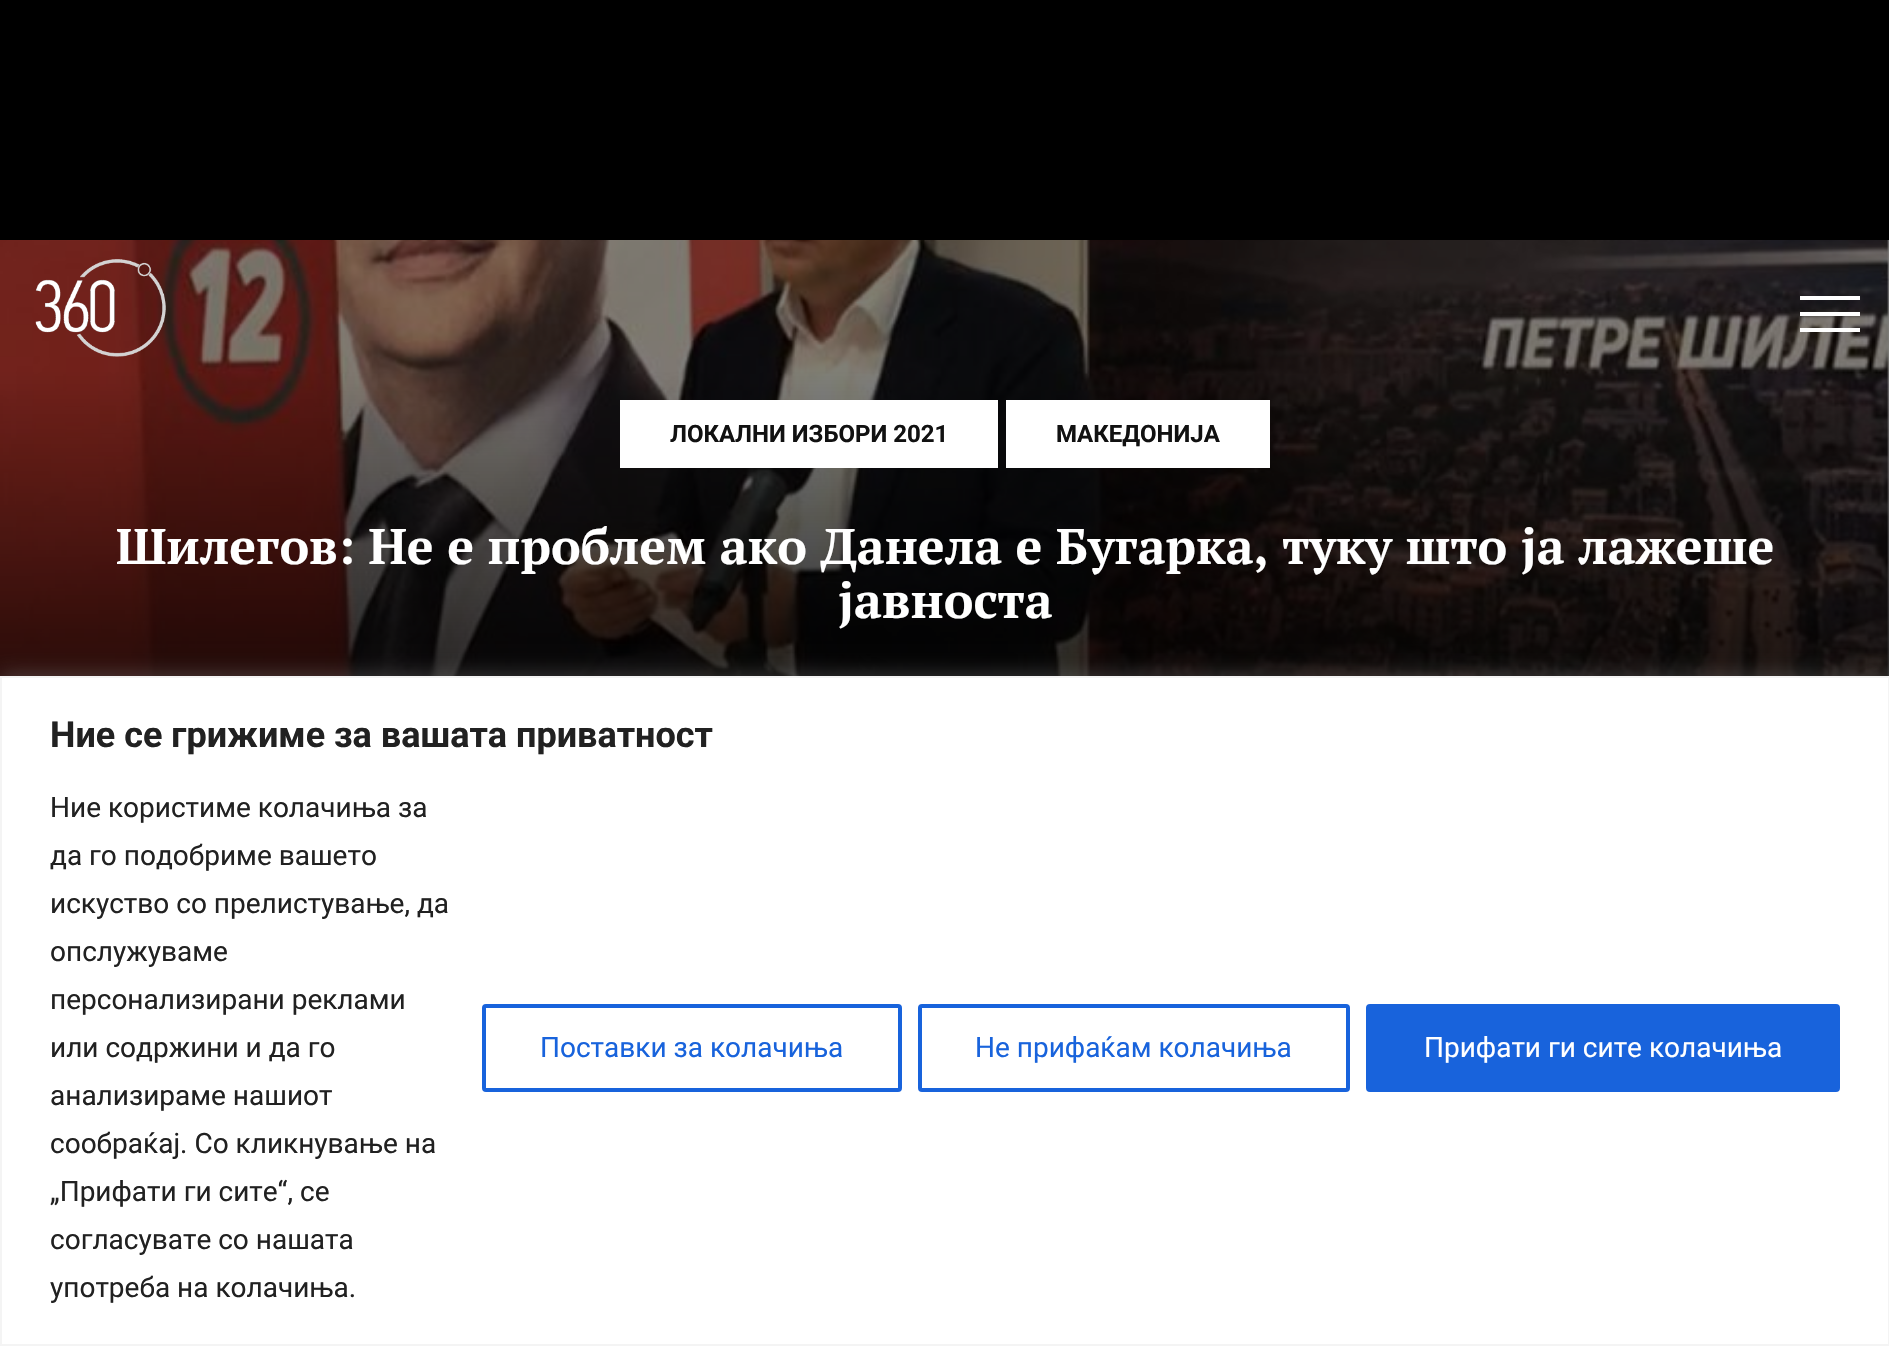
void draw(SkCanvas* canvas) {
  SkPaint paint;
  paint.setAntiAlias(true);
  auto face = [&](const char* family, int weight, float size, bool italic = false) {
    SkFontStyle style(weight, SkFontStyle::kNormal_Width,
      italic ? SkFontStyle::kItalic_Slant : SkFontStyle::kUpright_Slant);
    SkFont result(fontMgr->matchFamilyStyle(family, style), size);
    result.setSubpixel(true);
    return result;
  };
  auto paste = [&](const char* path, float x, float y, float w, float h) {
    auto image = SkImages::DeferredFromEncodedData(SkData::MakeFromFileName(path));
    canvas->drawImageRect(image, SkRect::MakeXYWH(x, y, w, h), SkSamplingOptions());
  };
  canvas->clear(0xff000000);
  paste("img/2.png", 0, 240, 1889, 436);
  paste("img/1.png", 35, 259, 131, 98);
  {
    const struct { float x, y, w, h; SkColor color; } items[] = {
      {1800, 296, 60, 4, 0xffffffff},
      {1800, 312, 60, 4, 0xffffffff},
      {1800, 328, 60, 4, 0xffffffff},
      {620, 400, 378, 68, 0xffffffff},
      {1006, 400, 264, 68, 0xffffffff},
    };
    for (auto [x, y, w, h, color] : items) {
      paint.setColor(color);
      canvas->drawRect(SkRect::MakeXYWH(x, y, w, h), paint);
    }
  }
  paint.setColor(0x4dacabab);
  paint.setMaskFilter(SkMaskFilter::MakeBlur(kNormal_SkBlurStyle, 10));
  canvas->drawRect(SkRect::MakeXYWH(0, 674, 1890, 670), paint);
  paint.setMaskFilter(nullptr);
  paint.setColor(0xffffffff);
  canvas->drawRect(SkRect::MakeXYWH(1, 677, 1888, 668), paint);
  paint.setStroke(true);
  paint.setStrokeWidth(2);
  paint.setColor(0xfff4f4f4);
  canvas->drawRect(SkRect::MakeXYWH(1, 677, 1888, 668), paint);
  paint.setStrokeWidth(4);
  paint.setColor(0xff1863dc);
  canvas->drawRoundRect(SkRect::MakeXYWH(484, 1006, 416, 84), 2, 2, paint);
  canvas->drawRoundRect(SkRect::MakeXYWH(920, 1006, 428, 84), 2, 2, paint);
  paint.setStroke(false);
  canvas->drawRoundRect(SkRect::MakeXYWH(1368, 1006, 470, 84), 2, 2, paint);
  paint.setStroke(true);
  canvas->drawRoundRect(SkRect::MakeXYWH(1368, 1006, 470, 84), 2, 2, paint);
  auto f0 = face("Roboto", 700, 24);
  paint.setStroke(false);
  paint.setColor(0xff111111);
  canvas->drawString("ЛОКАЛНИ ИЗБОРИ 2021", 670, 442, f0, paint);
  canvas->drawString("МАКЕДОНИЈА", 1056, 442, f0, paint);
  auto f1 = face("PT Serif", 700, 50);
  paint.setColor(0xffffffff);
  canvas->drawString("Шилегов: Не е проблем ако Данела е Бугарка, туку што ја лажеше", 116, 564, f1, paint);
  canvas->drawString("јавноста", 838, 618, f1, paint);
  auto f2 = face("Roboto", 700, 36);
  paint.setColor(0xff212121);
  canvas->drawString("Ние се грижиме за вашата приватност", 50, 747, f2, paint);
  auto f3 = face("Roboto", 400, 28);
  {
    const struct { const char* s; float x, y; } items[] = {
      {"Ние користиме колачиња за", 50, 817},
      {"да го подобриме вашето", 50, 865},
      {"искуство со прелистување, да", 50, 913},
      {"опслужуваме", 50, 961},
      {"персонализирани реклами", 50, 1009},
      {"или содржини и да го", 50, 1057},
      {"анализираме нашиот", 50, 1105},
      {"сообраќај. Со кликнување на", 50, 1153},
      {"„Прифати ги сите“, се", 50, 1201},
      {"согласувате со нашата", 50, 1249},
      {"употреба на колачиња.", 50, 1297},
    };
    for (auto [s, x, y] : items) {
      canvas->drawString(s, x, y, f3, paint);
    }
  }
  paint.setColor(0xff1863dc);
  canvas->drawString("Поставки за колачиња", 540, 1057, f3, paint);
  canvas->drawString("Не прифаќам колачиња", 975, 1057, f3, paint);
  paint.setColor(0xffffffff);
  canvas->drawString("Прифати ги сите колачиња", 1424, 1057, f3, paint);
}
